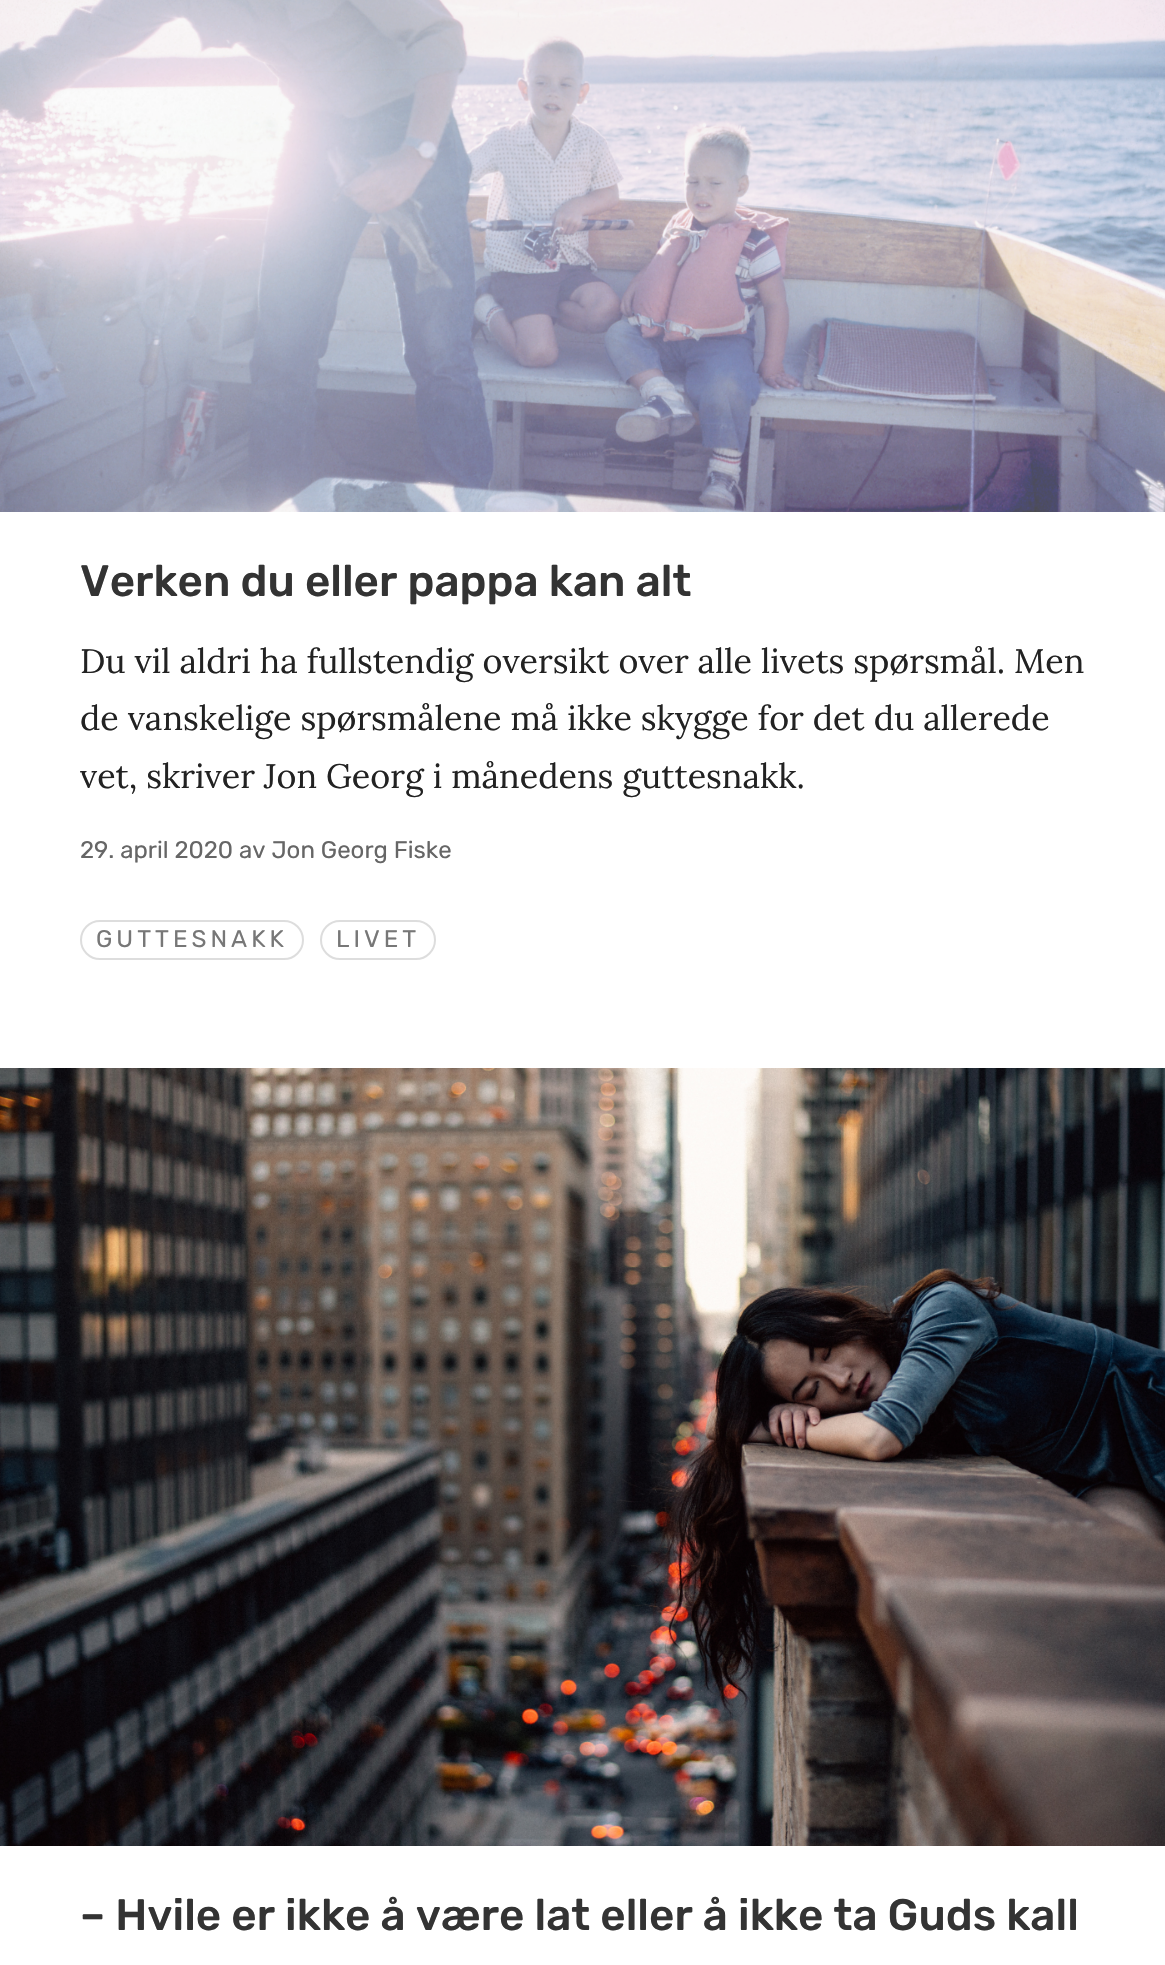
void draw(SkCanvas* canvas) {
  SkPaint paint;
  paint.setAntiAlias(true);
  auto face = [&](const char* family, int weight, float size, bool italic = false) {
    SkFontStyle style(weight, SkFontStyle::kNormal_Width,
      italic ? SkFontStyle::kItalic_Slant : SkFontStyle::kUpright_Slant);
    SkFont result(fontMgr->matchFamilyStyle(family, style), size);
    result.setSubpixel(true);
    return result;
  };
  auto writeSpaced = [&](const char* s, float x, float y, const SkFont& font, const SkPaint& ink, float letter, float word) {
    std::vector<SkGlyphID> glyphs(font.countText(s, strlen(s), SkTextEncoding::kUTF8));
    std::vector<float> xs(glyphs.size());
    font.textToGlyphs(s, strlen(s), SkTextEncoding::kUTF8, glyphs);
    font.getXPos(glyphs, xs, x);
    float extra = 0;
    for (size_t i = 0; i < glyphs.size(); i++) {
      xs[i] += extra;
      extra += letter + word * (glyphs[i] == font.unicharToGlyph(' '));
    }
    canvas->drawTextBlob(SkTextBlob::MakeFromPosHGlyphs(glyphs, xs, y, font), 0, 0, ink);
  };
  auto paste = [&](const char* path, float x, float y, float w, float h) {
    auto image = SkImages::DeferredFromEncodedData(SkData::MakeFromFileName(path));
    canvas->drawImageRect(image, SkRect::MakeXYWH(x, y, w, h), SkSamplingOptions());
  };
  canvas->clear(0xffffffff);
  paste("img/1.png", 0, 0, 1165, 512);
  paint.setStroke(true);
  paint.setStrokeWidth(2);
  paint.setColor(0xffdddddd);
  canvas->drawRoundRect(SkRect::MakeXYWH(81, 921, 222, 38), 19, 19, paint);
  canvas->drawRoundRect(SkRect::MakeXYWH(321, 921, 114, 38), 19, 19, paint);
  paste("img/2.png", 0, 1068, 1165, 778);
  auto f0 = face("Rubik", 500, 44);
  paint.setStroke(false);
  paint.setColor(0xff333333);
  canvas->drawString("Verken du eller pappa kan alt", 80, 596, f0, paint);
  auto f1 = face("Lora", 400, 34);
  paint.setColor(0xff222222);
  {
    const struct { const char* s; float x, y; } items[] = {
      {"Du vil aldri ha fullstendig oversikt over alle livets spørsmål. Men", 80, 673},
      {"de vanskelige spørsmålene må ikke skygge for det du allerede", 80, 730},
      {"vet, skriver Jon Georg i månedens guttesnakk.", 80, 788},
    };
    for (auto [s, x, y] : items) {
      canvas->drawString(s, x, y, f1, paint);
    }
  }
  auto f2 = face("Rubik", 400, 24);
  paint.setColor(0xff666666);
  canvas->drawString("29. april 2020 av Jon Georg Fiske", 80, 858, f2, paint);
  paint.setColor(0xff777777);
  writeSpaced("GUTTESNAKK", 96, 947, f2, paint, 4, 0);
  writeSpaced("LIVET", 336, 947, f2, paint, 4, 0);
  paint.setColor(0xff333333);
  canvas->drawString("– Hvile er ikke å være lat eller å ikke ta Guds kall", 80, 1930, f0, paint);
}
